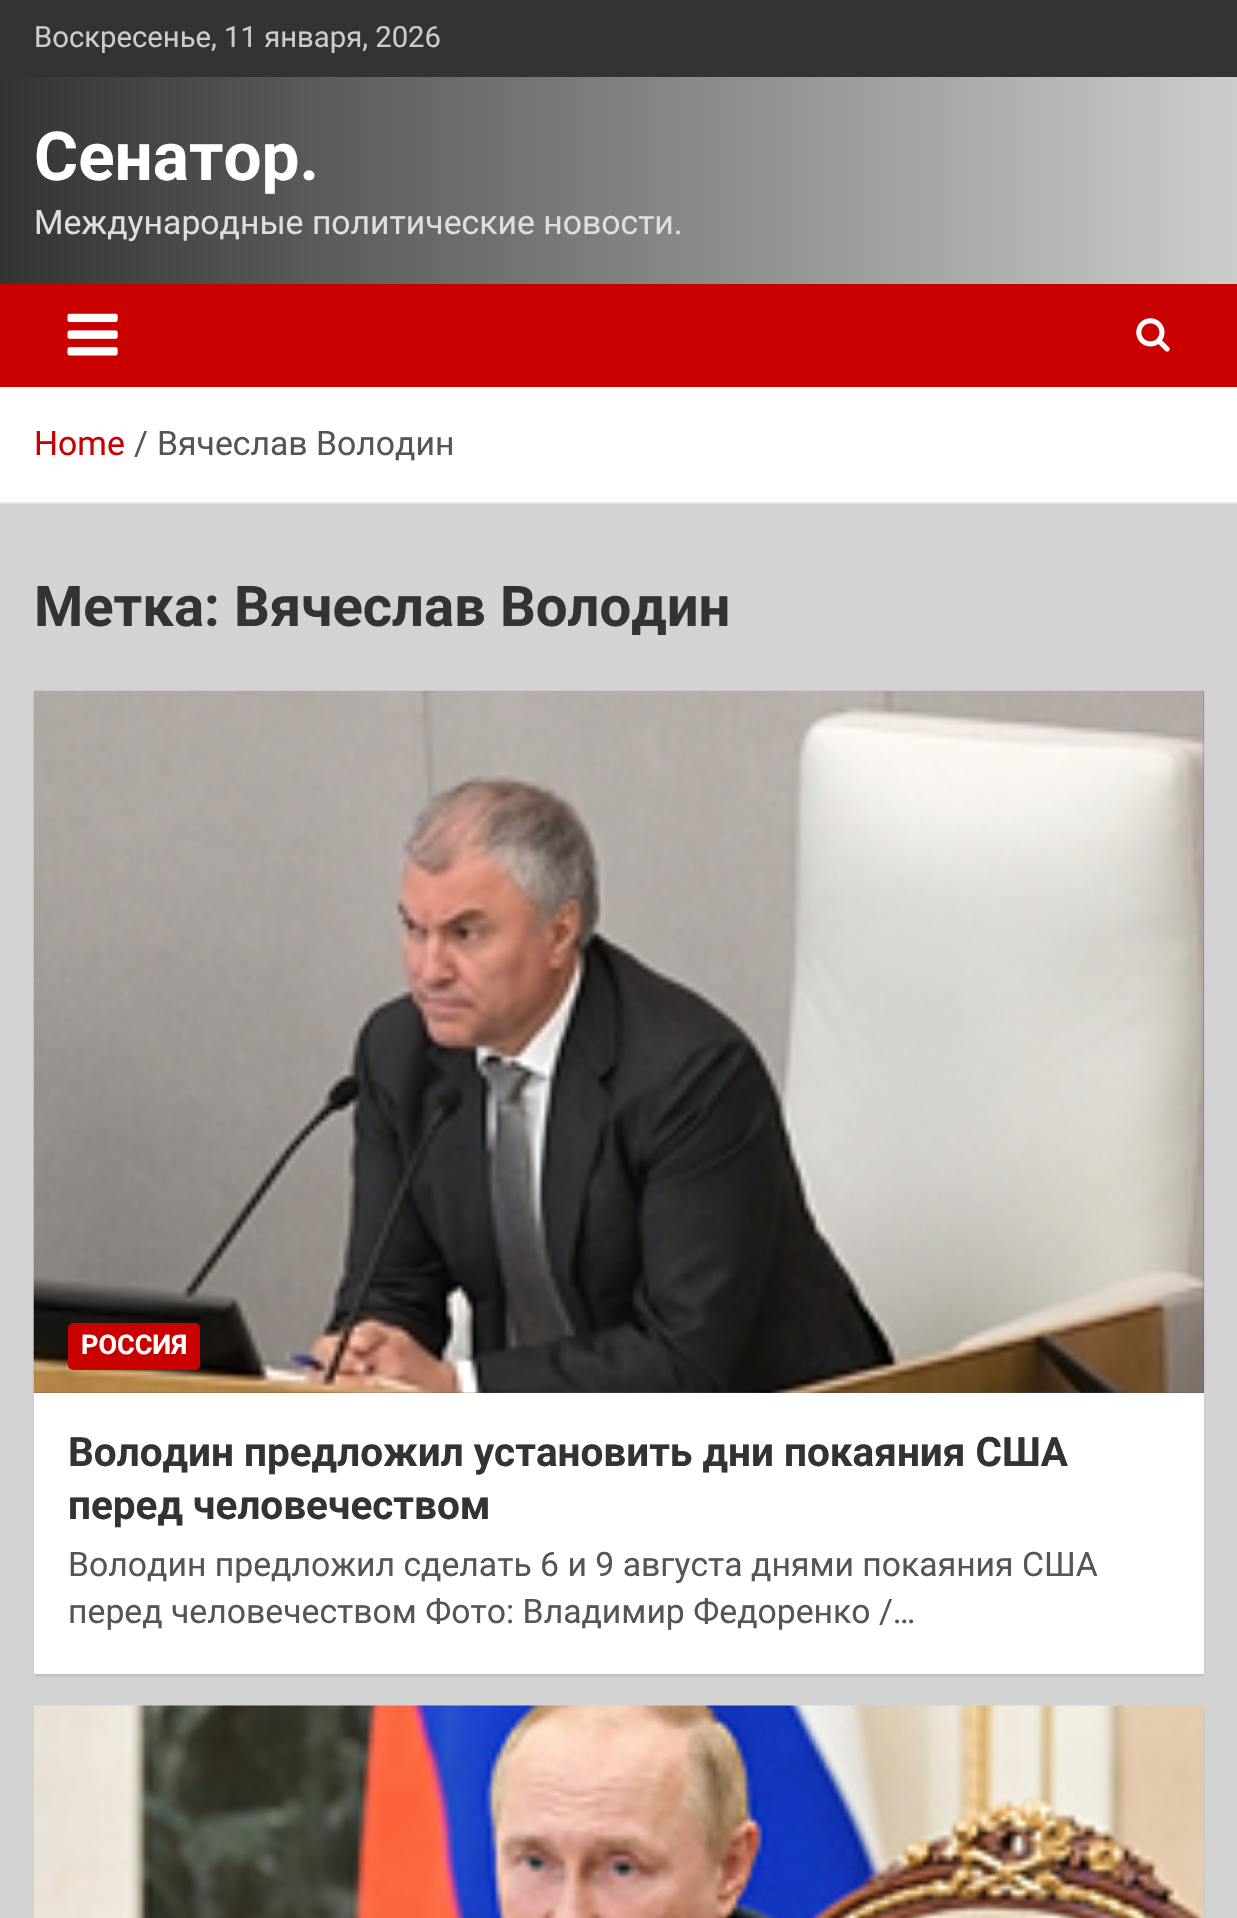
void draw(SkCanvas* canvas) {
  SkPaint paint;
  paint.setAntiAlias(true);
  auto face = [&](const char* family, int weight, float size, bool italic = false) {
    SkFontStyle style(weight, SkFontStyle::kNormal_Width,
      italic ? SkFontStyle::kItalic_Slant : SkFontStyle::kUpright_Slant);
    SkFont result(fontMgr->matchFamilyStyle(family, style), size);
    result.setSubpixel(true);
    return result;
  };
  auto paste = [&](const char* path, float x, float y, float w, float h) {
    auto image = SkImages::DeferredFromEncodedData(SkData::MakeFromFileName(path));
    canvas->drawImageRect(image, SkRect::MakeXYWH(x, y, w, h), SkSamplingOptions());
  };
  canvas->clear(0xffd3d3d3);
  paint.setColor(0xff333333);
  canvas->drawRect(SkRect::MakeXYWH(0, 0, 1237, 77), paint);
  {
    const SkColor colors[] = {0xff333333, 0xffcdcdcd};
    const float stops[] = {0, 1};
    const SkPoint ends[] = {{0, 180}, {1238, 180}};
    paint.setShader(SkGradientShader::MakeLinear(ends, colors, stops, 2, SkTileMode::kClamp));
    paint.setAlpha(255);
  }
  canvas->drawRect(SkRect::MakeXYWH(0, 77, 1237, 207), paint);
  paint.setShader(nullptr);
  paint.setColor(0xffc80000);
  canvas->drawRect(SkRect::MakeXYWH(0, 284, 1237, 103), paint);
  paste("img/1.png", 67, 313, 51, 43);
  paste("img/2.png", 1136, 318, 34, 34);
  paint.setColor(0xffffffff);
  canvas->drawRect(SkRect::MakeXYWH(0, 387, 1237, 115), paint);
  paint.setColor(0xffe6e6e6);
  canvas->drawRect(SkRect::MakeXYWH(0, 502, 1237, 2), paint);
  paint.setColor(0x1a000000);
  paint.setMaskFilter(SkMaskFilter::MakeBlur(kNormal_SkBlurStyle, 1));
  canvas->drawRect(SkRect::MakeXYWH(34, 693, 1170, 983), paint);
  paint.setMaskFilter(nullptr);
  paint.setColor(0xffffffff);
  canvas->drawRect(SkRect::MakeXYWH(34, 1393, 1170, 281), paint);
  paint.setColor(0xff555555);
  canvas->drawRect(SkRect::MakeXYWH(34, 691, 1170, 702), paint);
  paste("img/3.png", 33, 690, 1171, 703);
  paint.setColor(0xffc80000);
  canvas->drawRoundRect(SkRect::MakeXYWH(68, 1323, 132, 47), 5, 5, paint);
  paint.setColor(0x1a000000);
  paint.setMaskFilter(SkMaskFilter::MakeBlur(kNormal_SkBlurStyle, 1));
  canvas->drawRect(SkRect::MakeXYWH(34, 1708, 1170, 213), paint);
  paint.setMaskFilter(nullptr);
  paste("img/4.png", 33, 1705, 1171, 213);
  auto f0 = face("Roboto", 400, 29.25f);
  paint.setColor(0xffcccccc);
  canvas->drawString("Воскресенье, 11 января, 2026", 34, 47, f0, paint);
  auto f1 = face("Roboto", 700, 67.5f);
  paint.setColor(0xffffffff);
  canvas->drawString("Сенатор.", 34, 180, f1, paint);
  auto f2 = face("Roboto", 400, 33.75f);
  paint.setColor(0xffdfdfdf);
  canvas->drawString("Международные политические новости.", 34, 234, f2, paint);
  paint.setColor(0xffc80000);
  canvas->drawString("Home", 34, 455, f2, paint);
  paint.setColor(0xff555555);
  canvas->drawString("/", 134, 455, f2, paint);
  canvas->drawString("Вячеслав Володин", 157, 455, f2, paint);
  auto f3 = face("Roboto", 700, 56.25f);
  paint.setColor(0xff333333);
  canvas->drawString("Метка: Вячеслав Володин", 34, 626, f3, paint);
  auto f4 = face("Roboto", 700, 27);
  paint.setColor(0xffffffff);
  canvas->drawString("РОССИЯ", 81, 1354, f4, paint);
  auto f5 = face("Roboto", 700, 40.5f);
  paint.setColor(0xff333333);
  canvas->drawString("Володин предложил установить дни покаяния США", 68, 1466, f5, paint);
  canvas->drawString("перед человечеством", 68, 1519, f5, paint);
  paint.setColor(0xff555555);
  canvas->drawString("Володин предложил сделать 6 и 9 августа днями покаяния США", 68, 1576, f2, paint);
  canvas->drawString("перед человечеством Фото: Владимир Федоренко /…", 68, 1623, f2, paint);
}
